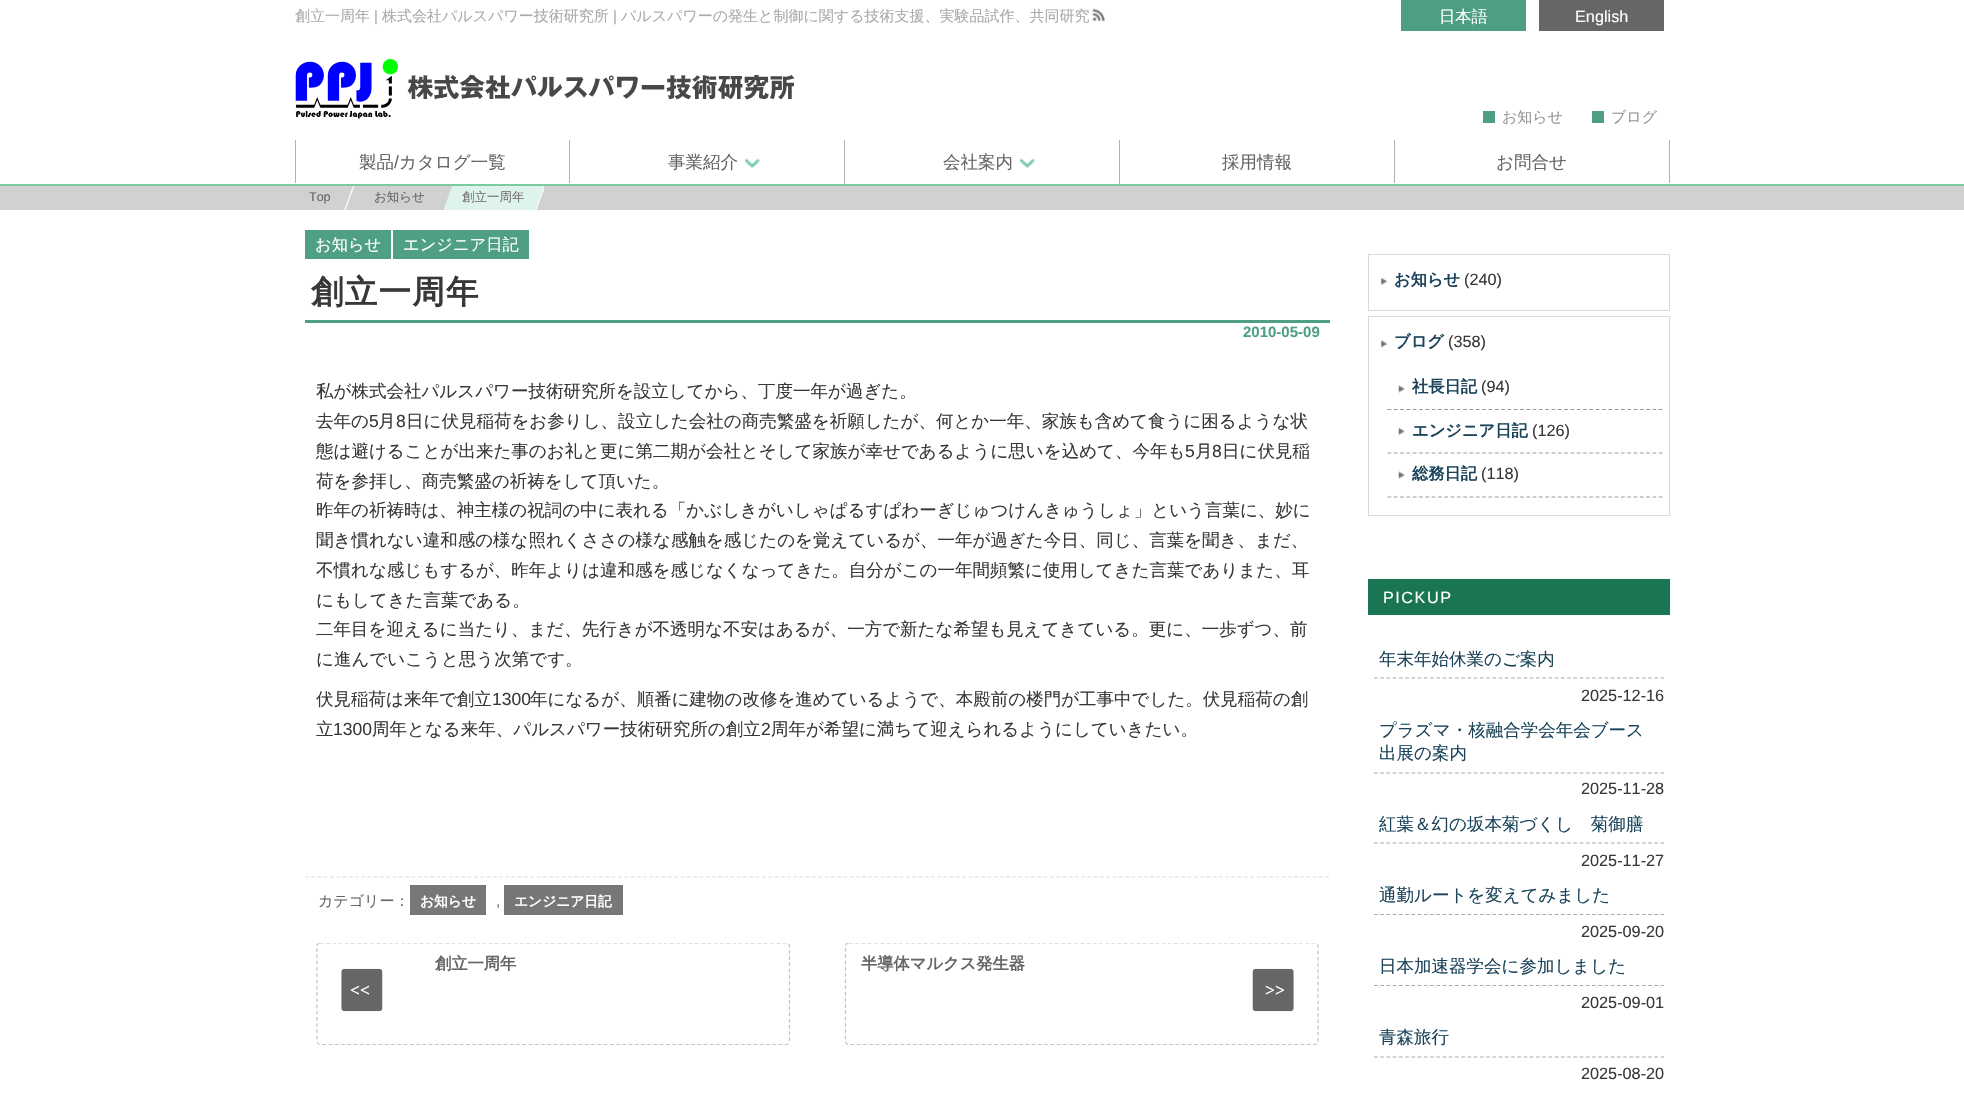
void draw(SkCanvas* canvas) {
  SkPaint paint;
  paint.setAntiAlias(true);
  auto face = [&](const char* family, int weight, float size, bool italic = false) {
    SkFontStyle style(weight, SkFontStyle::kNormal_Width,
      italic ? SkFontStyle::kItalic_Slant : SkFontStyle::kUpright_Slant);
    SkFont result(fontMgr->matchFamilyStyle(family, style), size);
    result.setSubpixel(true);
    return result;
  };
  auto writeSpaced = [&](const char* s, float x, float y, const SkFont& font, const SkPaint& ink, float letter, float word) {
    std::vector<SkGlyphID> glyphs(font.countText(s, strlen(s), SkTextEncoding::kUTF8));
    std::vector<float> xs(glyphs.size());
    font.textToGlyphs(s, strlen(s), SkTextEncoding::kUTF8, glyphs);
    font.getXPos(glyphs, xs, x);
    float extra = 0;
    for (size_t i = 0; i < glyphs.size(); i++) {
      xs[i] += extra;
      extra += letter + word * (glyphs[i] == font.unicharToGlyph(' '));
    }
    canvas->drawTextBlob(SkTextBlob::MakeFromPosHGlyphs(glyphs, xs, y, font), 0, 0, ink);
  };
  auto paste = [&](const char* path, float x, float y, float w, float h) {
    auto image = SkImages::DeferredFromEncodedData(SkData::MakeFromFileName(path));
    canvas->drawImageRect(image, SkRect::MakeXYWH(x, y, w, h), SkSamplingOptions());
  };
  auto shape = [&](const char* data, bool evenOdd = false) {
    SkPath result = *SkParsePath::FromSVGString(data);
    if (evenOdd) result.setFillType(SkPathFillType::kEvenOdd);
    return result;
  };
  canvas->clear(0xffffffff);
  paste("img/1.png", 1092, 8, 13, 14);
  paint.setColor(0xff4e9f82);
  canvas->drawRect(SkRect::MakeXYWH(1401, 0, 125, 31), paint);
  paint.setColor(0xff666666);
  canvas->drawRect(SkRect::MakeXYWH(1539, 0, 125, 31), paint);
  paste("img/2.png", 295, 59, 500, 60);
  {
    const struct { float x, y, w, h; SkColor color; } items[] = {
      {1483, 111, 12, 12, 0xff4e9f82},
      {1592, 111, 12, 12, 0xff4e9f82},
      {0, 184, 1964, 2, 0xff7cca9e},
      {569, 140, 1, 43, 0xffb3b3b3},
      {295, 140, 1, 43, 0xffb3b3b3},
      {844, 140, 1, 44, 0xffb3b3b3},
    };
    for (auto [x, y, w, h, color] : items) {
      paint.setColor(color);
      canvas->drawRect(SkRect::MakeXYWH(x, y, w, h), paint);
    }
  }
  paste("img/3.png", 745, 158, 15, 10);
  canvas->drawRect(SkRect::MakeXYWH(1119, 140, 1, 44), paint);
  paste("img/4.png", 1020, 158, 15, 10);
  {
    const struct { float x, y, w, h; SkColor color; } items[] = {
      {1394, 140, 1, 43, 0xffb3b3b3},
      {1669, 140, 1, 43, 0xffb3b3b3},
      {0, 186, 1964, 24, 0xffd1d1d1},
    };
    for (auto [x, y, w, h, color] : items) {
      paint.setColor(color);
      canvas->drawRect(SkRect::MakeXYWH(x, y, w, h), paint);
    }
  }
  canvas->save();
  canvas->clipRect(SkRect::MakeXYWH(336, 186, 108, 24));
  paint.setColor(0xffffffff);
  canvas->drawPath(shape("M358 172L359 173L342 220L341 219Z"), paint);
  canvas->restore();
  paint.setColor(0xffdef3ea);
  canvas->drawRect(SkRect::MakeXYWH(444, 186, 100, 24), paint);
  canvas->save();
  canvas->clipRect(SkRect::MakeXYWH(444, 186, 100, 24));
  paint.setColor(0xffd1d1d1);
  canvas->drawPath(shape("M440 172L455 178L438 225L423 219Z"), paint);
  canvas->drawPath(shape("M549 172L564 178L547 225L532 219Z"), paint);
  paint.setColor(0xffffffff);
  canvas->drawPath(shape("M549 172L550 173L533 220L532 219Z"), paint);
  canvas->restore();
  {
    const struct { float x, y, w, h; SkColor color; } items[] = {
      {305, 230, 86, 29, 0xff4fa082},
      {393, 230, 136, 29, 0xff4fa082},
      {305, 320, 1025, 3, 0xff4fa082},
    };
    for (auto [x, y, w, h, color] : items) {
      paint.setColor(color);
      canvas->drawRect(SkRect::MakeXYWH(x, y, w, h), paint);
    }
  }
  paint.setStroke(true);
  paint.setStrokeWidth(1.2f);
  paint.setColor(0xffdddddd);
  paint.setPathEffect(SkDashPathEffect::Make({{3.75f, 2.51f}}, 0));
  canvas->drawPath(shape("M305 877H1330"), paint);
  paint.setPathEffect(nullptr);
  paint.setStroke(false);
  paint.setColor(0xff777777);
  canvas->drawRect(SkRect::MakeXYWH(410, 885, 76, 30), paint);
  canvas->drawRect(SkRect::MakeXYWH(504, 885, 119, 30), paint);
  canvas->save();
  canvas->clipRect(SkRect::MakeXYWH(295, 943, 1045, 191));
  paint.setStroke(true);
  paint.setColor(0xffc4c4c4);
  paint.setPathEffect(SkDashPathEffect::Make({{3.75f, 2.5f}}, 0));
  canvas->drawPath(shape("M320 943H786C788 943 789.5 944.5 789.5 946V1041C789.5 1043 788 1044.5 786 1044.5H320C318.5 1044.5 317 1043 317 1041V946C317 944.5 318.5 943 320 943Z"), paint);
  paint.setPathEffect(nullptr);
  canvas->restore();
  paste("img/5.png", 341, 968, 42, 44);
  canvas->save();
  canvas->clipRect(SkRect::MakeXYWH(295, 943, 1045, 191));
  paint.setPathEffect(SkDashPathEffect::Make({{3.75f, 2.5f}}, 0));
  canvas->drawPath(shape("M849 943H1315C1316.5 943 1318 944.5 1318 946V1041C1318 1043 1316.5 1044.5 1315 1044.5H849C847 1044.5 845.5 1043 845.5 1041V946C845.5 944.5 847 943 849 943Z"), paint);
  paint.setPathEffect(nullptr);
  canvas->restore();
  paste("img/6.png", 1252, 968, 42, 44);
  paint.setStrokeWidth(1);
  paint.setColor(0xffdadada);
  canvas->drawRect(SkRect::MakeXYWH(1368.5f, 254.5f, 301, 56), paint);
  paste("img/7.png", 1381, 277, 7, 8);
  canvas->drawRect(SkRect::MakeXYWH(1368.5f, 316.5f, 301, 199), paint);
  paste("img/8.png", 1381, 340, 7, 8);
  paint.setStrokeWidth(1.2f);
  paint.setColor(0xff9b9b9b);
  paint.setPathEffect(SkDashPathEffect::Make({{3.75f, 2.56f}}, 0));
  canvas->drawPath(shape("M1387.5 409.5H1662.5"), paint);
  paint.setPathEffect(nullptr);
  paste("img/9.png", 1398, 385, 7, 8);
  paint.setPathEffect(SkDashPathEffect::Make({{3.75f, 2.56f}}, 0));
  canvas->drawPath(shape("M1387.5 453H1662.5"), paint);
  paint.setPathEffect(nullptr);
  paste("img/10.png", 1398, 427, 7, 8);
  paint.setPathEffect(SkDashPathEffect::Make({{3.75f, 2.56f}}, 0));
  canvas->drawPath(shape("M1387.5 497H1662.5"), paint);
  paint.setPathEffect(nullptr);
  paste("img/11.png", 1398, 471, 7, 8);
  paint.setStroke(false);
  paint.setColor(0xff1a7553);
  canvas->drawRect(SkRect::MakeXYWH(1368, 579, 302, 36), paint);
  paint.setStroke(true);
  paint.setColor(0xffaaaaaa);
  paint.setPathEffect(SkDashPathEffect::Make({{3.75f, 2.48f}}, 0));
  canvas->drawPath(shape("M1374 678H1664"), paint);
  paint.setPathEffect(nullptr);
  paint.setPathEffect(SkDashPathEffect::Make({{3.75f, 2.48f}}, 0));
  canvas->drawPath(shape("M1374 773H1664"), paint);
  paint.setPathEffect(nullptr);
  paint.setPathEffect(SkDashPathEffect::Make({{3.75f, 2.48f}}, 0));
  canvas->drawPath(shape("M1374 843H1664"), paint);
  paint.setPathEffect(nullptr);
  paint.setPathEffect(SkDashPathEffect::Make({{3.75f, 2.48f}}, 0));
  canvas->drawPath(shape("M1374 914.5H1664"), paint);
  paint.setPathEffect(nullptr);
  paint.setPathEffect(SkDashPathEffect::Make({{3.75f, 2.48f}}, 0));
  canvas->drawPath(shape("M1374 985.5H1664"), paint);
  paint.setPathEffect(nullptr);
  paint.setPathEffect(SkDashPathEffect::Make({{3.75f, 2.48f}}, 0));
  canvas->drawPath(shape("M1374 1057H1664"), paint);
  paint.setPathEffect(nullptr);
  auto f0 = face("WenQuanYi Zen Hei", 500, 15);
  paint.setStroke(false);
  canvas->drawString("創立一周年", 295, 21, f0, paint);
  auto f1 = face("Liberation Sans", 400, 15);
  canvas->drawString("|", 374, 21, f1, paint);
  canvas->drawString("株式会社パルスパワー技術研究所", 382, 21, f0, paint);
  canvas->drawString("|", 613, 21, f1, paint);
  canvas->drawString("パルスパワーの発生と制御に関する技術支援、実験品試作、共同研究", 621, 21, f0, paint);
  auto f2 = face("WenQuanYi Zen Hei", 500, 16.25f);
  paint.setColor(0xffffffff);
  canvas->drawString("日本語", 1439, 22, f2, paint);
  auto f3 = face("Liberation Sans", 400, 16.25f);
  canvas->drawString("English", 1575, 22, f3, paint);
  paint.setColor(0xff969696);
  canvas->drawString("お知らせ", 1502, 122, f0, paint);
  canvas->drawString("ブログ", 1611, 122, f0, paint);
  auto f4 = face("WenQuanYi Zen Hei", 500, 17.5f);
  paint.setColor(0xff666666);
  canvas->drawString("製品", 359, 168, f4, paint);
  auto f5 = face("Liberation Sans", 400, 17.5f);
  canvas->drawString("/", 394, 168, f5, paint);
  {
    const struct { const char* s; float x, y; } items[] = {
      {"カタログ一覧", 399, 168},
      {"事業紹介", 668, 168},
      {"会社案内", 943, 168},
      {"採用情報", 1222, 168},
      {"お問合せ", 1496, 168},
    };
    for (auto [s, x, y] : items) {
      canvas->drawString(s, x, y, f4, paint);
    }
  }
  auto f6 = face("Liberation Sans", 400, 12.5f);
  canvas->drawString("Top", 309, 201, f6, paint);
  auto f7 = face("WenQuanYi Zen Hei", 500, 12.5f);
  canvas->drawString("お知らせ", 374, 201, f7, paint);
  paint.setColor(0xff707070);
  canvas->drawString("創立一周年", 462, 201, f7, paint);
  paint.setColor(0xffffffff);
  canvas->drawString("お知らせ", 315, 250, f2, paint);
  canvas->drawString("エンジニア日記", 403, 250, f2, paint);
  auto f8 = face("WenQuanYi Zen Hei", 700, 32.5f);
  paint.setColor(0xff383838);
  writeSpaced("創立一周年", 311, 303, f8, paint, 1.25f, 0);
  auto f9 = face("Liberation Sans", 700, 15);
  paint.setColor(0xff4fa082);
  canvas->drawString("2010-05-09", 1243, 337, f9, paint);
  paint.setColor(0xff383838);
  canvas->drawString("私が株式会社パルスパワー技術研究所を設立してから、丁度一年が過ぎた。", 316, 397, f4, paint);
  canvas->drawString("去年の", 316, 427, f4, paint);
  canvas->drawString("5", 369, 427, f5, paint);
  canvas->drawString("月", 378, 427, f4, paint);
  canvas->drawString("8", 396, 427, f5, paint);
  canvas->drawString("日に伏見稲荷をお参りし、設立した会社の商売繁盛を祈願したが、何とか一年、家族も含めて食うに困るような状", 406, 427, f4, paint);
  canvas->drawString("態は避けることが出来た事のお礼と更に第二期が会社とそして家族が幸せであるように思いを込めて、今年も", 316, 457, f4, paint);
  canvas->drawString("5", 1185, 457, f5, paint);
  canvas->drawString("月", 1195, 457, f4, paint);
  canvas->drawString("8", 1212, 457, f5, paint);
  {
    const struct { const char* s; float x, y; } items[] = {
      {"日に伏見稲", 1222, 457},
      {"荷を参拝し、商売繁盛の祈祷をして頂いた。", 316, 487},
      {"昨年の祈祷時は、神主様の祝詞の中に表れる「かぶしきがいしゃぱるすぱわーぎじゅつけんきゅうしょ」という言葉に、妙に", 316, 516},
      {"聞き慣れない違和感の様な照れくささの様な感触を感じたのを覚えているが、一年が過ぎた今日、同じ、言葉を聞き、まだ、", 316, 546},
      {"不慣れな感じもするが、昨年よりは違和感を感じなくなってきた。自分がこの一年間頻繁に使用してきた言葉でありまた、耳", 316, 576},
      {"にもしてきた言葉である。", 316, 606},
      {"二年目を迎えるに当たり、まだ、先行きが不透明な不安はあるが、一方で新たな希望も見えてきている。更に、一歩ずつ、前", 316, 635},
      {"に進んでいこうと思う次第です。", 316, 665},
      {"伏見稲荷は来年で創立", 316, 705},
    };
    for (auto [s, x, y] : items) {
      canvas->drawString(s, x, y, f4, paint);
    }
  }
  canvas->drawString("1300", 492, 705, f5, paint);
  canvas->drawString("年になるが、順番に建物の改修を進めているようで、本殿前の楼門が工事中でした。伏見稲荷の創", 530, 705, f4, paint);
  canvas->drawString("立", 316, 735, f4, paint);
  canvas->drawString("1300", 333, 735, f5, paint);
  canvas->drawString("周年となる来年、パルスパワー技術研究所の創立", 372, 735, f4, paint);
  canvas->drawString("2", 761, 735, f5, paint);
  canvas->drawString("周年が希望に満ちて迎えられるようにしていきたい。", 771, 735, f4, paint);
  paint.setColor(0xff666666);
  canvas->drawString("カテゴリー：", 318, 906, f0, paint);
  auto f10 = face("WenQuanYi Zen Hei", 700, 13.75f);
  paint.setColor(0xffffffff);
  canvas->drawString("お知らせ", 420, 906, f10, paint);
  paint.setColor(0xff666666);
  canvas->drawString(",", 496, 906, f1, paint);
  paint.setColor(0xffffffff);
  canvas->drawString("エンジニア日記", 514, 906, f10, paint);
  auto f11 = face("WenQuanYi Zen Hei", 700, 16.25f);
  paint.setColor(0xff666666);
  canvas->drawString("創立一周年", 435, 969, f11, paint);
  auto f12 = face("Liberation Serif", 700, 17.5f);
  paint.setColor(0xffffffff);
  canvas->drawString("<<", 350, 996, f12, paint);
  paint.setColor(0xff666666);
  canvas->drawString("半導体マルクス発生器", 861, 969, f11, paint);
  paint.setColor(0xffffffff);
  canvas->drawString(">>", 1265, 996, f12, paint);
  paint.setColor(0xff1b445b);
  canvas->drawString("お知らせ", 1394, 285, f11, paint);
  paint.setColor(0xff383838);
  canvas->drawString("(240)", 1464, 285, f3, paint);
  paint.setColor(0xff1b445b);
  canvas->drawString("ブログ", 1394, 347, f11, paint);
  paint.setColor(0xff383838);
  canvas->drawString("(358)", 1448, 347, f3, paint);
  paint.setColor(0xff1b445b);
  canvas->drawString("社長日記", 1412, 392, f11, paint);
  paint.setColor(0xff383838);
  canvas->drawString("(94)", 1481, 392, f3, paint);
  paint.setColor(0xff1b445b);
  canvas->drawString("エンジニア日記", 1412, 436, f11, paint);
  paint.setColor(0xff383838);
  canvas->drawString("(126)", 1532, 436, f3, paint);
  paint.setColor(0xff1b445b);
  canvas->drawString("総務日記", 1412, 479, f11, paint);
  paint.setColor(0xff383838);
  canvas->drawString("(118)", 1481, 479, f3, paint);
  paint.setColor(0xffffffff);
  writeSpaced("PICKUP", 1383, 603, f3, paint, 1.5f, 0);
  paint.setColor(0xff1b445b);
  canvas->drawString("年末年始休業のご案内", 1379, 665, f4, paint);
  paint.setColor(0xff383838);
  canvas->drawString("2025-12-16", 1581, 701, f3, paint);
  paint.setColor(0xff1b445b);
  canvas->drawString("プラズマ・核融合学会年会ブース", 1379, 736, f4, paint);
  canvas->drawString("出展の案内", 1379, 759, f4, paint);
  paint.setColor(0xff383838);
  canvas->drawString("2025-11-28", 1581, 794, f3, paint);
  paint.setColor(0xff1b445b);
  canvas->drawString("紅葉＆幻の坂本菊づくし　菊御膳", 1379, 830, f4, paint);
  paint.setColor(0xff383838);
  canvas->drawString("2025-11-27", 1581, 866, f3, paint);
  paint.setColor(0xff1b445b);
  canvas->drawString("通勤ルートを変えてみました", 1379, 901, f4, paint);
  paint.setColor(0xff383838);
  canvas->drawString("2025-09-20", 1581, 937, f3, paint);
  paint.setColor(0xff1b445b);
  canvas->drawString("日本加速器学会に参加しました", 1379, 972, f4, paint);
  paint.setColor(0xff383838);
  canvas->drawString("2025-09-01", 1581, 1008, f3, paint);
  paint.setColor(0xff1b445b);
  canvas->drawString("青森旅行", 1379, 1043, f4, paint);
  paint.setColor(0xff383838);
  canvas->drawString("2025-08-20", 1581, 1079, f3, paint);
}
